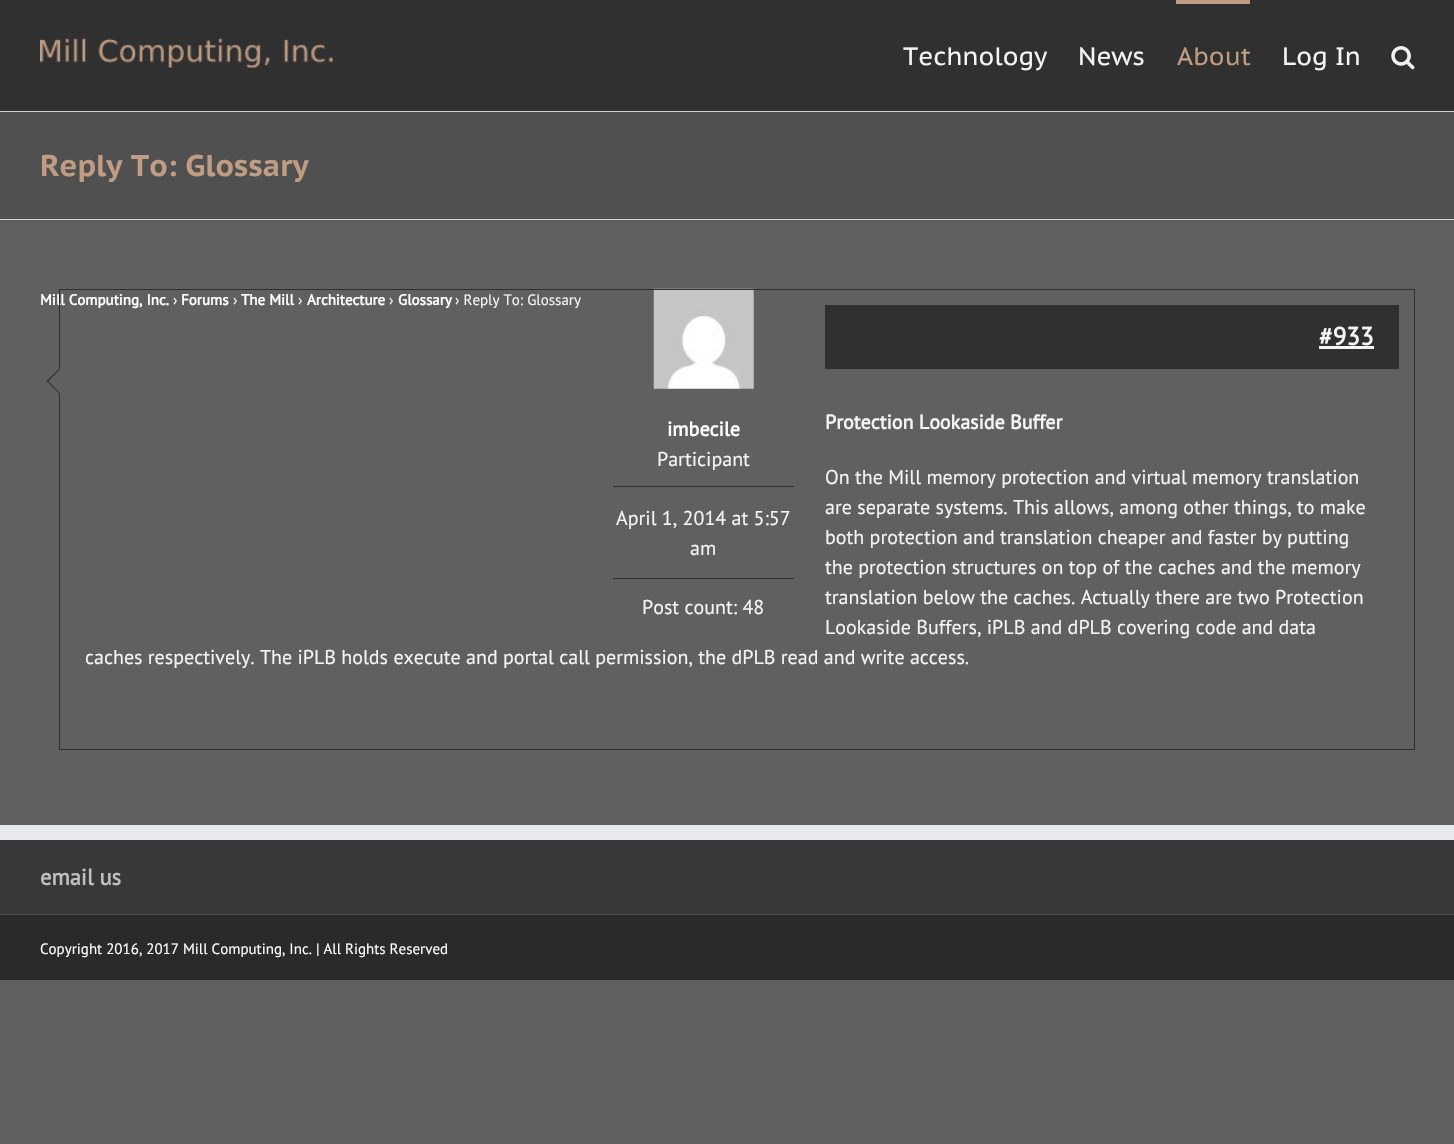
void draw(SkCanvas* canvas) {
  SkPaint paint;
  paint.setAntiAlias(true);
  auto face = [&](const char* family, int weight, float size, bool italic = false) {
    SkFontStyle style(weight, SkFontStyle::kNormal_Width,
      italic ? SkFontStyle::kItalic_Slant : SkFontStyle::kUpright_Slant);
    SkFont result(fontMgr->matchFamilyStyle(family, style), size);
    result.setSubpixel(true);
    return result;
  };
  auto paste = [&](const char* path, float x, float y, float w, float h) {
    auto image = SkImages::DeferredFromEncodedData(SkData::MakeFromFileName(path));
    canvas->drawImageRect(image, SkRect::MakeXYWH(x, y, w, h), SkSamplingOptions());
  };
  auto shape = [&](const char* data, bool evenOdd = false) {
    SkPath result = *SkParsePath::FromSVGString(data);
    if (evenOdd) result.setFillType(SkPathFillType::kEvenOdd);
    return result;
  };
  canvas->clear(0xff606060);
  paint.setColor(0xff303030);
  canvas->drawRect(SkRect::MakeXYWH(0, 0, 1454, 111), paint);
  paste("img/1.png", 40, 38, 293, 30);
  paint.setColor(0xffbf9c83);
  canvas->drawRect(SkRect::MakeXYWH(1176, 0, 74, 4), paint);
  paste("img/2.png", 1391, 46, 24, 24);
  {
    const struct { float x, y, w, h; SkColor color; } items[] = {
      {0, 112, 1454, 107, 0xff505050},
      {0, 111, 1454, 1, 0xffd2d3d4},
      {0, 219, 1454, 1, 0xffd2d3d4},
    };
    for (auto [x, y, w, h, color] : items) {
      paint.setColor(color);
      canvas->drawRect(SkRect::MakeXYWH(x, y, w, h), paint);
    }
  }
  paste("img/3.png", 653, 288, 101, 101);
  {
    const struct { float x, y, w, h; SkColor color; } items[] = {
      {613, 486, 181, 1, 0xff303030},
      {613, 578, 181, 1, 0xff303030},
      {0, 840, 1454, 74, 0xff363839},
      {0, 825, 1454, 15, 0xffe9eaee},
      {0, 915, 1454, 65, 0xff282a2b},
      {0, 914, 1454, 1, 0xff4b4c4d},
    };
    for (auto [x, y, w, h, color] : items) {
      paint.setColor(color);
      canvas->drawRect(SkRect::MakeXYWH(x, y, w, h), paint);
    }
  }
  auto f0 = face("PT Sans Caption", 400, 25);
  paint.setColor(0xfff4f4f4);
  canvas->drawString("Technology", 903, 65, f0, paint);
  canvas->drawString("News", 1078, 65, f0, paint);
  paint.setColor(0xffbf9c83);
  canvas->drawString("About", 1177, 65, f0, paint);
  paint.setColor(0xfff4f4f4);
  canvas->drawString("Log In", 1282, 65, f0, paint);
  auto f1 = face("PT Sans Caption", 700, 30);
  paint.setColor(0xffbf9c83);
  canvas->drawString("Reply To: Glossary", 40, 176, f1, paint);
  auto f2 = face("PT Sans", 700, 15);
  paint.setColor(0xffffffff);
  canvas->drawString("Mill Computing, Inc.", 40, 305, f2, paint);
  auto f3 = face("PT Sans", 400, 15);
  paint.setColor(0xfff4f4f4);
  canvas->drawString("›", 173, 305, f3, paint);
  paint.setColor(0xffffffff);
  canvas->drawString("Forums", 181, 305, f2, paint);
  paint.setColor(0xfff4f4f4);
  canvas->drawString("›", 233, 305, f3, paint);
  paint.setColor(0xffffffff);
  canvas->drawString("The Mill", 241, 305, f2, paint);
  paint.setColor(0xfff4f4f4);
  canvas->drawString("›", 298, 305, f3, paint);
  paint.setColor(0xffffffff);
  canvas->drawString("Architecture", 307, 305, f2, paint);
  paint.setColor(0xfff4f4f4);
  canvas->drawString("›", 389, 305, f3, paint);
  paint.setColor(0xffffffff);
  canvas->drawString("Glossary", 398, 305, f2, paint);
  paint.setColor(0xfff4f4f4);
  canvas->drawString("› Reply To: Glossary", 455, 305, f3, paint);
  paint.setStroke(true);
  paint.setStrokeWidth(1);
  paint.setColor(0xff303030);
  canvas->drawRect(SkRect::MakeXYWH(59.5f, 289.5f, 1355, 460), paint);
  paint.setStroke(false);
  canvas->drawRect(SkRect::MakeXYWH(825, 305, 574, 64), paint);
  auto f4 = face("PT Sans", 700, 25);
  paint.setColor(0xfff4f4f4);
  canvas->drawString("#933", 1319, 345, f4, paint);
  canvas->drawRect(SkRect::MakeXYWH(1319, 346, 55, 3), paint);
  paint.setColor(0xff606060);
  canvas->drawPath(shape("M59 369L71 381L59 393.5L46.5 381Z"), paint);
  paint.setColor(0xff303030);
  canvas->drawPath(shape("M47.5 380.5L59.5 392.5L59 393.5L46.5 381Z"), paint);
  canvas->drawPath(shape("M59 369L59.5 370L47.5 382L46.5 381Z"), paint);
  auto f5 = face("PT Sans", 700, 20);
  paint.setColor(0xfff4f4f4);
  canvas->drawString("Protection Lookaside Buffer", 825, 429, f5, paint);
  auto f6 = face("PT Sans", 400, 20);
  {
    const struct { const char* s; float x, y; } items[] = {
      {"On the Mill memory protection and virtual memory translation", 825, 484},
      {"are separate systems. This allows, among other things, to make", 825, 514},
      {"both protection and translation cheaper and faster by putting", 825, 544},
      {"the protection structures on top of the caches and the memory", 825, 574},
      {"translation below the caches. Actually there are two Protection", 825, 604},
      {"Lookaside Buffers, iPLB and dPLB covering code and data", 825, 634},
      {"caches respectively. The iPLB holds execute and portal call permission, the dPLB read and write access.", 85, 664},
    };
    for (auto [s, x, y] : items) {
      canvas->drawString(s, x, y, f6, paint);
    }
  }
  paint.setColor(0xffffffff);
  canvas->drawString("imbecile", 667, 436, f5, paint);
  paint.setColor(0xfff4f4f4);
  {
    const struct { const char* s; float x, y; } items[] = {
      {"Participant", 657, 466},
      {"April 1, 2014 at 5:57", 616, 525},
      {"am", 690, 555},
      {"Post count: 48", 642, 614},
    };
    for (auto [s, x, y] : items) {
      canvas->drawString(s, x, y, f6, paint);
    }
  }
  auto f7 = face("PT Sans", 700, 22.5f);
  paint.setColor(0xffbfbfbf);
  canvas->drawString("email us", 40, 885, f7, paint);
  paint.setColor(0xffffffff);
  canvas->drawString("Copyright 2016, 2017 Mill Computing, Inc. | All Rights Reserved", 40, 954, f3, paint);
}
